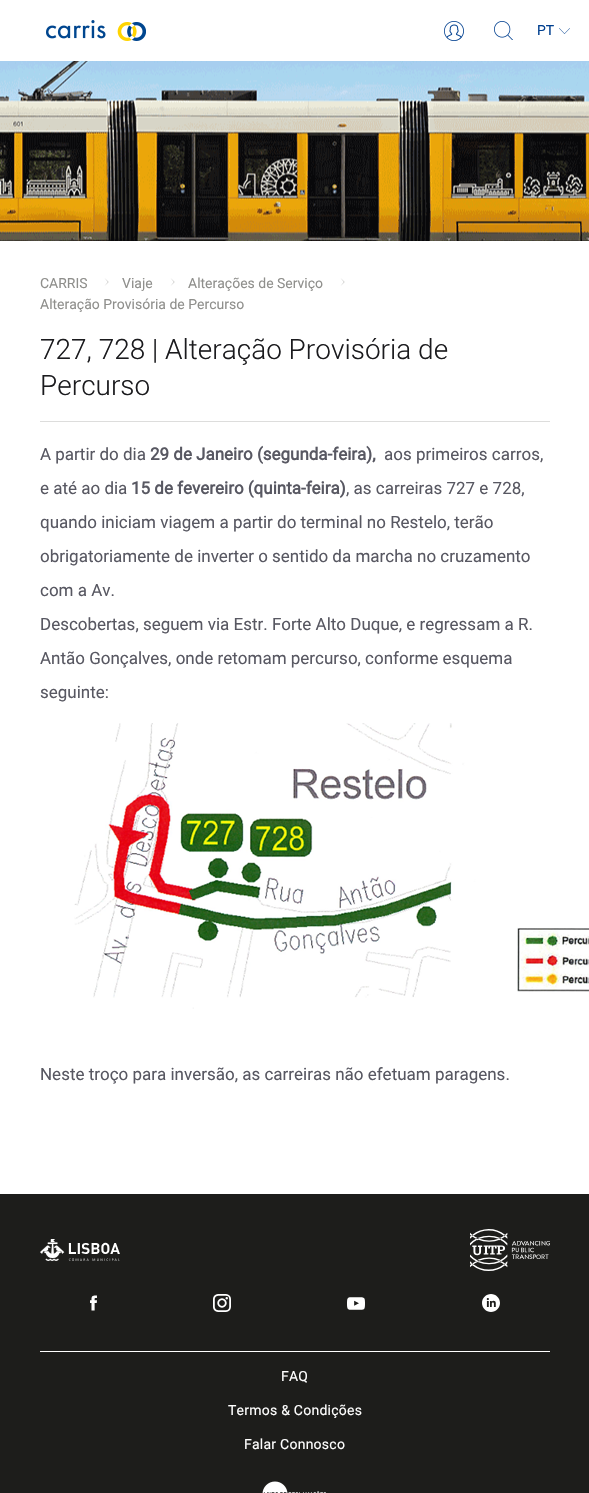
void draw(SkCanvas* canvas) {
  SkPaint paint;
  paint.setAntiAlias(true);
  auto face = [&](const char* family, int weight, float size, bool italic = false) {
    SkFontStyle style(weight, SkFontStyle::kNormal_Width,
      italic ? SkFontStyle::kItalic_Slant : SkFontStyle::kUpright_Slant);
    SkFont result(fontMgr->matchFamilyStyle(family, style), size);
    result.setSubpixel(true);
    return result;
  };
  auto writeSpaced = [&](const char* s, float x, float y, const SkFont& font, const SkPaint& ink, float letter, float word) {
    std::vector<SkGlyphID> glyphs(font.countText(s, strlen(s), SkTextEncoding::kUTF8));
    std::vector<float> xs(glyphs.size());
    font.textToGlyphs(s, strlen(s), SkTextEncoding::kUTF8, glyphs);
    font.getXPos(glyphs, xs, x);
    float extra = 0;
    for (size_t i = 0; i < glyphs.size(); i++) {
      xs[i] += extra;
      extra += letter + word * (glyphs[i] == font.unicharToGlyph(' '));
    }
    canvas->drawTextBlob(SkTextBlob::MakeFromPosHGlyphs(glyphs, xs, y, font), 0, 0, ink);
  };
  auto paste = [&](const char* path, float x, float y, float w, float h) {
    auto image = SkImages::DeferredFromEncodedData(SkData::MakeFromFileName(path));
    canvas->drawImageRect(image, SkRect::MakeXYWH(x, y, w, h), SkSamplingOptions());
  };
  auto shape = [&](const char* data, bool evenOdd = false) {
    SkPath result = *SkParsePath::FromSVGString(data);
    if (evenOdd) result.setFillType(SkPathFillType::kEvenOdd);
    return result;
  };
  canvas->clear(0xffffffff);
  paste("img/1.png", 46, 20, 100, 21);
  paste("img/2.png", 444, 21, 20, 20);
  paste("img/3.png", 494, 21, 19, 19);
  paste("img/4.png", 559, 28, 11, 6);
  paste("img/5.png", 0, 61, 589, 180);
  paint.setColor(0xff8f8f8c);
  canvas->drawPath(shape("M104.5 286L108 282L104.5 278L108.5 282Z"), paint);
  canvas->drawPath(shape("M170.5 286L174 282L170.5 278L174.5 282Z"), paint);
  canvas->drawPath(shape("M340.5 286L344 282L340.5 278L344.5 282Z"), paint);
  paint.setColor(0xffdddddc);
  canvas->drawRect(SkRect::MakeXYWH(40, 421, 510, 1), paint);
  paste("img/6.png", 74, 723, 515, 286);
  paint.setColor(0xff1d1d1b);
  canvas->drawRect(SkRect::MakeXYWH(0, 1194, 589, 299), paint);
  paint.setColor(0xffffffff);
  canvas->drawRect(SkRect::MakeXYWH(40, 1351, 510, 1), paint);
  paste("img/7.png", 40, 1239, 80, 22);
  paste("img/8.png", 470, 1229, 80, 42);
  paste("img/9.png", 90, 1295, 7, 16);
  paste("img/10.png", 213, 1294, 18, 18);
  paste("img/11.png", 347, 1297, 18, 13);
  paste("img/12.png", 482, 1294, 18, 18);
  paste("img/13.png", 262, 1481, 64, 12);
  auto f0 = face("Roboto", 400, 14);
  paint.setColor(0xff003f8f);
  canvas->drawString("PT", 537, 35, f0, paint);
  paint.setColor(0xff8f8f8c);
  {
    const struct { const char* s; float x, y; } items[] = {
      {"CARRIS", 40, 288},
      {"Viaje", 122, 288},
      {"Alterações de Serviço", 188, 288},
      {"Alteração Provisória de Percurso", 40, 309},
    };
    for (auto [s, x, y] : items) {
      canvas->drawString(s, x, y, f0, paint);
    }
  }
  auto f1 = face("Roboto", 300, 28);
  paint.setColor(0xff1b1b1e);
  canvas->drawString("727, 728 | Alteração Provisória de", 40, 359, f1, paint);
  canvas->drawString("Percurso", 40, 395, f1, paint);
  auto f2 = face("Roboto", 400, 17);
  paint.setColor(0xff585862);
  canvas->drawString("A partir do dia", 40, 460, f2, paint);
  auto f3 = face("Roboto", 700, 17);
  canvas->drawString("29 de Janeiro (segunda-feira),", 150, 460, f3, paint);
  canvas->drawString("aos primeiros carros,", 384, 460, f2, paint);
  canvas->drawString("e até ao dia", 40, 494, f2, paint);
  canvas->drawString("15 de fevereiro (quinta-feira)", 131, 494, f3, paint);
  {
    const struct { const char* s; float x, y; } items[] = {
      {", as carreiras 727 e 728,", 346, 494},
      {"quando iniciam viagem a partir do terminal no Restelo, terão", 40, 528},
      {"obrigatoriamente de inverter o sentido da marcha no cruzamento", 40, 562},
      {"com a Av.", 40, 596},
      {"Descobertas, seguem via Estr. Forte Alto Duque, e regressam a R.", 40, 630},
      {"Antão Gonçalves, onde retomam percurso, conforme esquema", 40, 664},
      {"seguinte:", 40, 698},
      {"Neste troço para inversão, as carreiras não efetuam paragens.", 40, 1080},
    };
    for (auto [s, x, y] : items) {
      canvas->drawString(s, x, y, f2, paint);
    }
  }
  paint.setColor(0xffffffff);
  {
    const struct { const char* s; float x, y; } items[] = {
      {"FAQ", 281, 1381},
      {"Termos & Condições", 228, 1415},
      {"Falar Connosco", 244, 1449},
    };
    for (auto [s, x, y] : items) {
      writeSpaced(s, x, y, f0, paint, 0.25f, 0);
    }
  }
}
